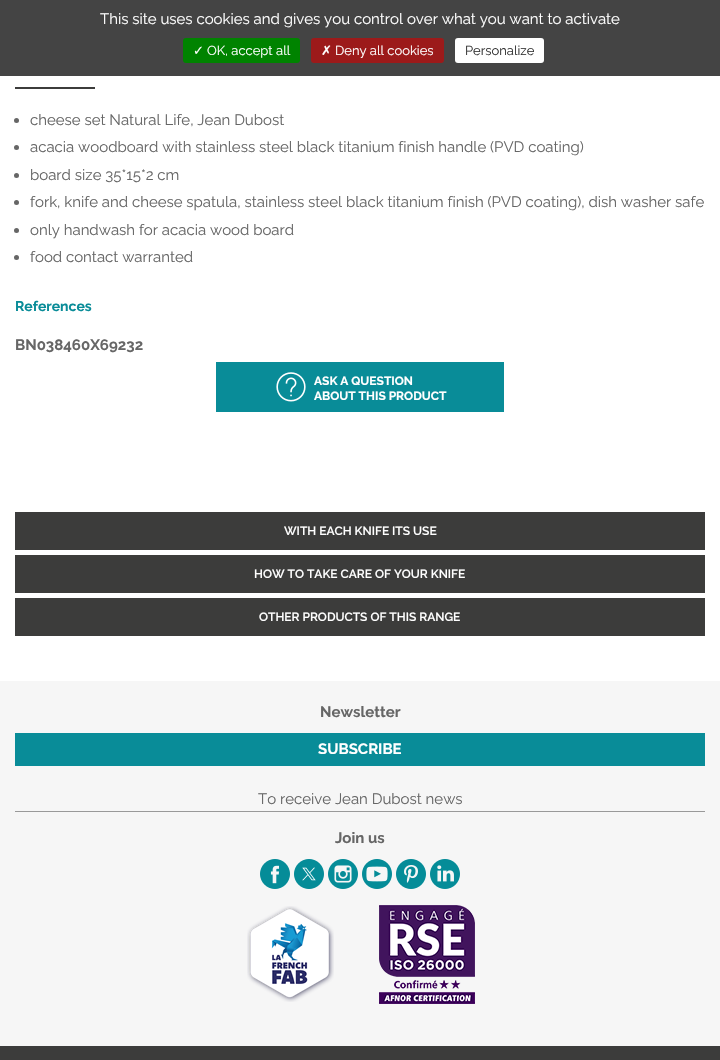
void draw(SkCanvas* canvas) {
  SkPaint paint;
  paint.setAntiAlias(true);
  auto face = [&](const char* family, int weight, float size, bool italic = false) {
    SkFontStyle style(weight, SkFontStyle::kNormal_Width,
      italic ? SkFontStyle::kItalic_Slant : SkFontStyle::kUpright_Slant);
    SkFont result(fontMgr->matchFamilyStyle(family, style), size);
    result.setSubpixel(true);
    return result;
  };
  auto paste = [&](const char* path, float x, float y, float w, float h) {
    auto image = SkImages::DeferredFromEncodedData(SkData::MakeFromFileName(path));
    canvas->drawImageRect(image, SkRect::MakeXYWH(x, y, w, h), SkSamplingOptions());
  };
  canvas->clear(0xffffffff);
  paint.setColor(0xff444444);
  canvas->drawRect(SkRect::MakeXYWH(0, 0, 720, 76), paint);
  paint.setColor(0xff008300);
  canvas->drawRoundRect(SkRect::MakeXYWH(183, 38, 117, 25), 3, 3, paint);
  paint.setColor(0xff9c1a1a);
  canvas->drawRoundRect(SkRect::MakeXYWH(311, 38, 133, 25), 3, 3, paint);
  paint.setColor(0xffffffff);
  canvas->drawRoundRect(SkRect::MakeXYWH(455, 38, 89, 25), 3, 3, paint);
  paint.setColor(0xff3c3c3b);
  canvas->drawRect(SkRect::MakeXYWH(15, 87, 80, 2), paint);
  paint.setColor(0xff666666);
  canvas->drawCircle(16.5f, 120.5f, 2.5f, paint);
  canvas->drawCircle(16.5f, 147.5f, 2.5f, paint);
  canvas->drawCircle(16.5f, 175.5f, 2.5f, paint);
  canvas->drawCircle(16.5f, 202.5f, 2.5f, paint);
  canvas->drawCircle(16.5f, 230.5f, 2.5f, paint);
  canvas->drawCircle(16.5f, 257.5f, 2.5f, paint);
  paint.setColor(0xff098c98);
  canvas->drawRect(SkRect::MakeXYWH(216, 362, 288, 50), paint);
  paste("img/1.png", 276, 372, 30, 30);
  {
    const struct { float x, y, w, h; SkColor color; } items[] = {
      {15, 512, 690, 38, 0xff3c3c3b},
      {15, 555, 690, 38, 0xff3c3c3b},
      {15, 598, 690, 38, 0xff3c3c3b},
      {0, 681, 720, 365, 0xfff6f6f6},
      {15, 811, 690, 1, 0xff999999},
      {15, 733, 690, 33, 0xff098c98},
    };
    for (auto [x, y, w, h, color] : items) {
      paint.setColor(color);
      canvas->drawRect(SkRect::MakeXYWH(x, y, w, h), paint);
    }
  }
  paste("img/2.png", 260, 859, 30, 30);
  paste("img/3.png", 294, 859, 30, 30);
  paste("img/4.png", 328, 859, 30, 30);
  paste("img/5.png", 362, 859, 30, 30);
  paste("img/6.png", 396, 859, 30, 30);
  paste("img/7.png", 430, 859, 30, 30);
  paste("img/8.png", 247, 906, 87, 96);
  paste("img/9.png", 379, 905, 96, 99);
  paint.setColor(0xff3c3c3b);
  canvas->drawRect(SkRect::MakeXYWH(0, 1046, 720, 14), paint);
  auto f0 = face("Raleway", 400, 15);
  paint.setColor(0xffffffff);
  canvas->drawString("This site uses cookies and gives you control over what you want to activate", 100, 24, f0, paint);
  auto f1 = face("DejaVu Sans", 400, 13);
  canvas->drawString("✓", 193, 55, f1, paint);
  auto f2 = face("Raleway", 400, 13);
  canvas->drawString("OK, accept all", 207, 55, f2, paint);
  canvas->drawString("✗", 321, 55, f1, paint);
  canvas->drawString("Deny all cookies", 335, 55, f2, paint);
  paint.setColor(0xff333333);
  canvas->drawString("Personalize", 465, 55, f2, paint);
  paint.setColor(0xff666666);
  {
    const struct { const char* s; float x, y; } items[] = {
      {"cheese set Natural Life, Jean Dubost", 30, 125},
      {"acacia woodboard with stainless steel black titanium finish handle (PVD coating)", 30, 152},
      {"board size 35*15*2 cm", 30, 180},
      {"fork, knife and cheese spatula, stainless steel black titanium finish (PVD coating), dish washer safe", 30, 207},
      {"only handwash for acacia wood board", 30, 235},
      {"food contact warranted", 30, 262},
    };
    for (auto [s, x, y] : items) {
      canvas->drawString(s, x, y, f0, paint);
    }
  }
  auto f3 = face("Raleway", 700, 14);
  paint.setColor(0xff098c98);
  canvas->drawString("References", 15, 311, f3, paint);
  auto f4 = face("Raleway", 700, 15);
  paint.setColor(0xff666666);
  canvas->drawString("BN038460X69232", 15, 350, f4, paint);
  auto f5 = face("Raleway", 700, 12);
  paint.setColor(0xffffffff);
  canvas->drawString("ASK A QUESTION", 314, 385, f5, paint);
  canvas->drawString("ABOUT THIS PRODUCT", 314, 400, f5, paint);
  auto f6 = face("Raleway", 600, 12);
  {
    const struct { const char* s; float x, y; } items[] = {
      {"WITH EACH KNIFE ITS USE", 284, 535},
      {"HOW TO TAKE CARE OF YOUR KNIFE", 254, 578},
      {"OTHER PRODUCTS OF THIS RANGE", 259, 621},
    };
    for (auto [s, x, y] : items) {
      canvas->drawString(s, x, y, f6, paint);
    }
  }
  paint.setColor(0xff666666);
  canvas->drawString("Newsletter", 320, 717, f4, paint);
  paint.setColor(0xffffffff);
  canvas->drawString("SUBSCRIBE", 318, 754, f4, paint);
  paint.setColor(0xff666666);
  canvas->drawString("To receive Jean Dubost news", 258, 804, f0, paint);
  canvas->drawString("Join us", 335, 843, f4, paint);
}
